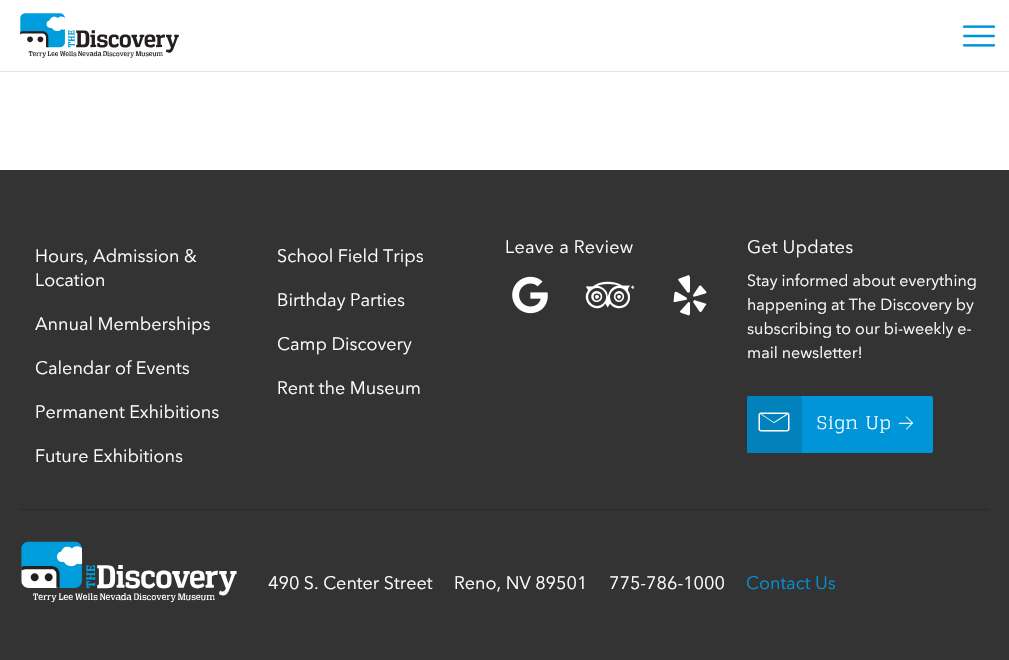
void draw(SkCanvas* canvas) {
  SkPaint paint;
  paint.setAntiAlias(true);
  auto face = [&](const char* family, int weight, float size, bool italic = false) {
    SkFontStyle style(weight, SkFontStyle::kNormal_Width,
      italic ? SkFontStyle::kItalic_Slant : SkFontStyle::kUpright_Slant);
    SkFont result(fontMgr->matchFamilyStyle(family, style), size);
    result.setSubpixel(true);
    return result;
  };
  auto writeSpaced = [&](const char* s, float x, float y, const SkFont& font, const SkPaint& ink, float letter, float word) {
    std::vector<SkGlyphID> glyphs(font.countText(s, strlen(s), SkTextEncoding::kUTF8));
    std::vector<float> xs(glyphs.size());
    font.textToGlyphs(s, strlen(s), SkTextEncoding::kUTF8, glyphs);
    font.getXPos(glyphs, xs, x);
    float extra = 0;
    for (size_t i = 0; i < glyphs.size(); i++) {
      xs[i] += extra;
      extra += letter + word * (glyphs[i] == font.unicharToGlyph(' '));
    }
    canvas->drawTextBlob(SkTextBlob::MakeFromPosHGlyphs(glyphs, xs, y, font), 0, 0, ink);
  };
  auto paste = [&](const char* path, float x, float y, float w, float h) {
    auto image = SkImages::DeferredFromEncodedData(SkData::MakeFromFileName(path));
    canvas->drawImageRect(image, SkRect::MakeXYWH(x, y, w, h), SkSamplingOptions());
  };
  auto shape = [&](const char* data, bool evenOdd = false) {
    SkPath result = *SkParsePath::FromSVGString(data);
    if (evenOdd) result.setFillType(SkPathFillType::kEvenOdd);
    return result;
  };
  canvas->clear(0xffffffff);
  paint.setColor(0xffe5e1db);
  canvas->drawRect(SkRect::MakeXYWH(0, 71, 1009, 1), paint);
  paste("img/1.png", 20, 13, 159, 45);
  paste("img/2.png", 962, 25, 34, 22);
  paint.setColor(0xff333333);
  canvas->drawRect(SkRect::MakeXYWH(0, 170, 1009, 490), paint);
  paste("img/3.png", 512, 276, 36, 38);
  paste("img/4.png", 585, 281, 50, 28);
  paste("img/5.png", 673, 275, 34, 41);
  paint.setColor(0xff0094d8);
  canvas->drawRoundRect(SkRect::MakeXYWH(747, 396, 186, 57), 2, 2, paint);
  paint.setColor(0xff0182bd);
  canvas->drawPath(shape("M749 396H802V453H749C748 453 747 452 747 451V398C747 397 748 396 749 396Z"), paint);
  paste("img/6.png", 758, 412, 32, 20);
  paste("img/7.png", 898, 416, 16, 14);
  paint.setColor(0xff292929);
  canvas->drawRect(SkRect::MakeXYWH(20, 509, 969, 1), paint);
  paste("img/8.png", 21, 541, 216, 62);
  auto f0 = face("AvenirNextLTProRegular", 400, 18);
  paint.setColor(0xffffffff);
  {
    const struct { const char* s; float x, y; } items[] = {
      {"Hours, Admission &", 35, 262},
      {"Location", 35, 286},
      {"Annual Memberships", 35, 330},
      {"Calendar of Events", 35, 374},
      {"Permanent Exhibitions", 35, 418},
      {"Future Exhibitions", 35, 462},
      {"School Field Trips", 277, 262},
      {"Birthday Parties", 277, 306},
      {"Camp Discovery", 277, 350},
      {"Rent the Museum", 277, 394},
    };
    for (auto [s, x, y] : items) {
      canvas->drawString(s, x, y, f0, paint);
    }
  }
  writeSpaced("Leave a Review", 505, 253, f0, paint, 0.25f, 0);
  writeSpaced("Get Updates", 747, 253, f0, paint, 0.25f, 0);
  auto f1 = face("AvenirNextLTProRegular", 400, 16);
  {
    const struct { const char* s; float x, y; } items[] = {
      {"Stay informed about everything", 747, 286},
      {"happening at The Discovery by", 747, 310},
      {"subscribing to our bi-weekly e-", 747, 334},
      {"mail newsletter!", 747, 358},
    };
    for (auto [s, x, y] : items) {
      canvas->drawString(s, x, y, f1, paint);
    }
  }
  auto f2 = face("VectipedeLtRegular", 400, 18);
  writeSpaced("Sign Up", 817, 429, f2, paint, 1.5f, 0);
  {
    const struct { const char* s; float x, y; } items[] = {
      {"490 S. Center Street", 268, 589},
      {"Reno, NV 89501", 454, 589},
      {"775-786-1000", 609, 589},
    };
    for (auto [s, x, y] : items) {
      canvas->drawString(s, x, y, f0, paint);
    }
  }
  paint.setColor(0xff0094d8);
  canvas->drawString("Contact Us", 746, 589, f0, paint);
}
